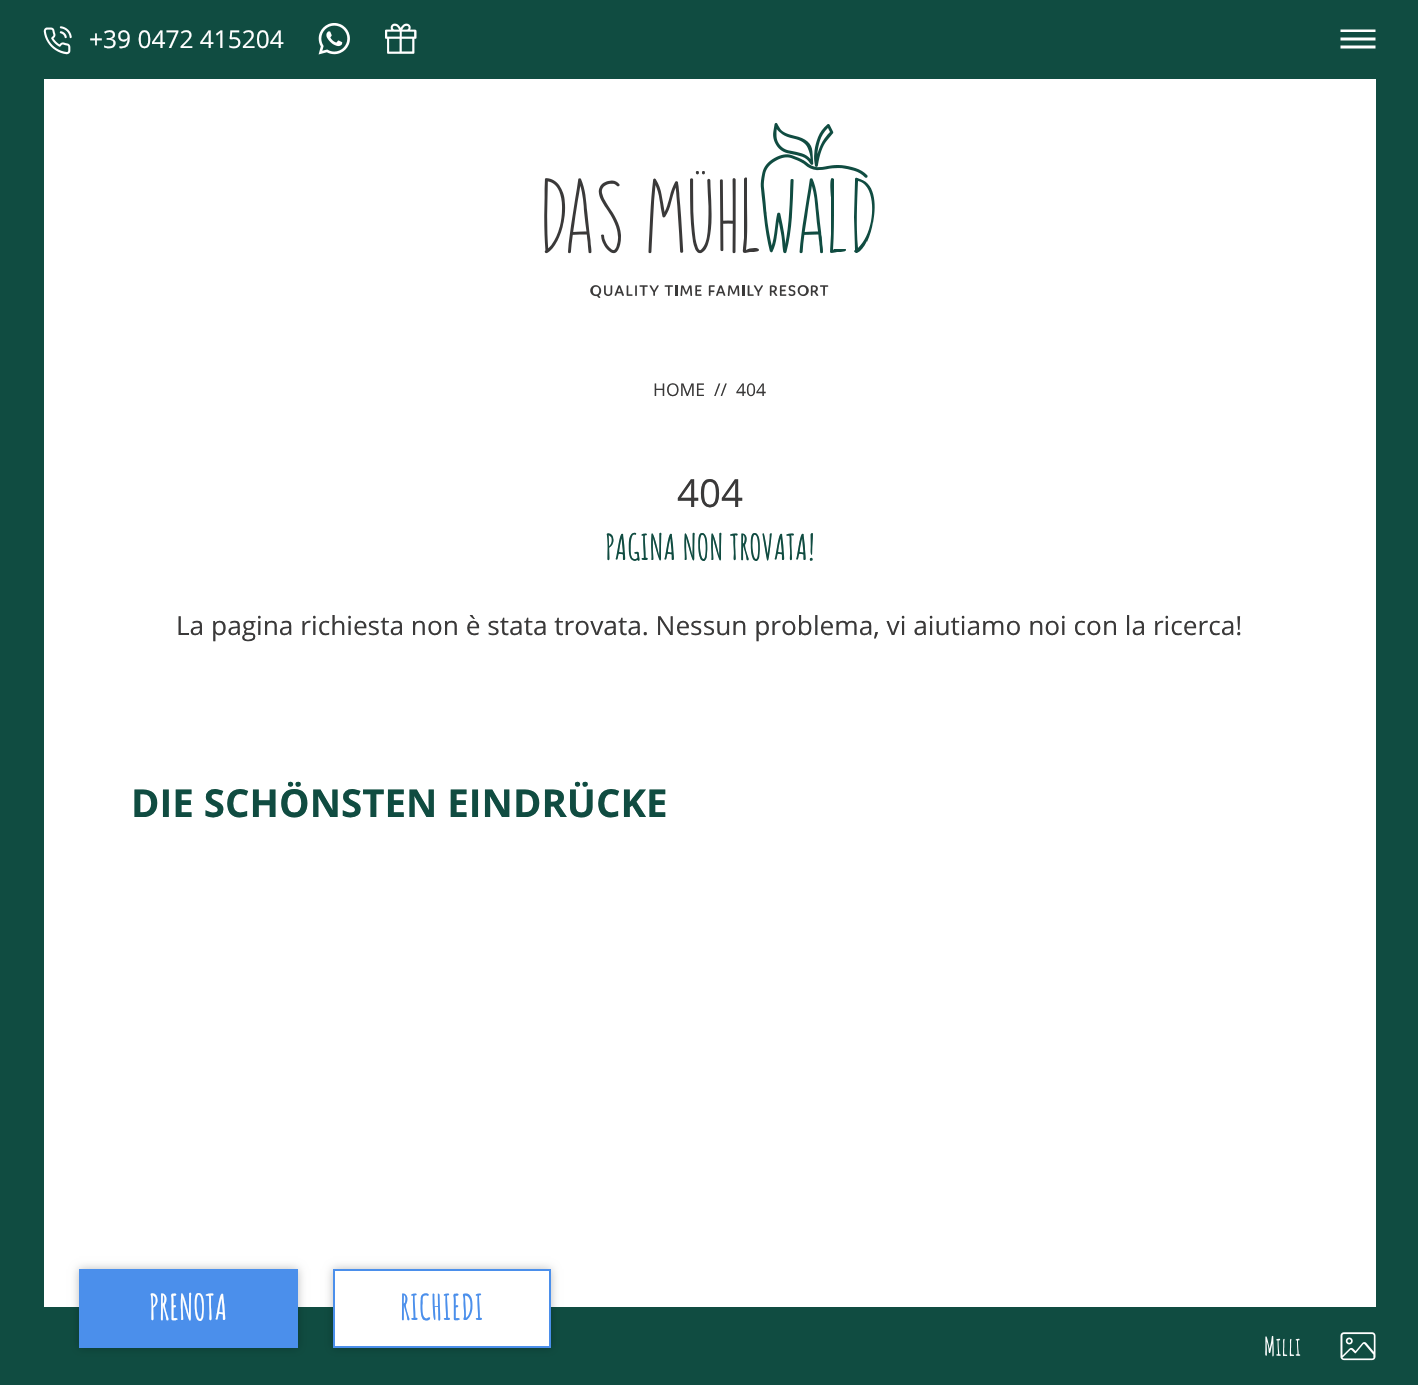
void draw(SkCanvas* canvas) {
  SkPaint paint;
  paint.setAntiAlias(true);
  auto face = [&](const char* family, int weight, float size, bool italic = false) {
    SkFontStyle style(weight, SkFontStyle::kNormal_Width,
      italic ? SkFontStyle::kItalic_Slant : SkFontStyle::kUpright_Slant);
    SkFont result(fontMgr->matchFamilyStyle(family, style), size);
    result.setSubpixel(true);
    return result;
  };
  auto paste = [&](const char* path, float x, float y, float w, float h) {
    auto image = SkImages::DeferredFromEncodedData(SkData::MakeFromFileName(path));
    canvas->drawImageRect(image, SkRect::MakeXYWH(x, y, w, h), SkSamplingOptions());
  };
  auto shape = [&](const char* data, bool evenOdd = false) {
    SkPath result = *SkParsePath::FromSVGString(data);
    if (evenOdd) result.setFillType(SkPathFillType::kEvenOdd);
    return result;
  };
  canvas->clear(0xffffffff);
  paint.setColor(0xff104c41);
  canvas->drawRect(SkRect::MakeXYWH(0, 0, 44, 1385), paint);
  canvas->drawRect(SkRect::MakeXYWH(44, 0, 1332, 79), paint);
  paste("img/1.png", 43, 26, 29, 29);
  paste("img/2.png", 318, 23, 32, 32);
  paste("img/3.png", 385, 23, 32, 31);
  paint.setColor(0xffffffff);
  canvas->drawPath(shape("M1340.5 29.5H1375.5V32H1340.5ZM1340.5 37.5H1375.5V40.5H1340.5ZM1340.5 45.5H1375.5V48.5H1340.5Z"), paint);
  paint.setColor(0xff104c41);
  canvas->drawRect(SkRect::MakeXYWH(1376, 0, 42, 1385), paint);
  canvas->drawRect(SkRect::MakeXYWH(44, 1307, 1332, 78), paint);
  paint.setColor(0x40000000);
  paint.setMaskFilter(SkMaskFilter::MakeBlur(kNormal_SkBlurStyle, 4.5f));
  canvas->drawRect(SkRect::MakeXYWH(79, 1269, 219, 79), paint);
  paint.setMaskFilter(nullptr);
  paint.setColor(0xff4b8feb);
  canvas->drawRect(SkRect::MakeXYWH(79, 1269, 219, 79), paint);
  paint.setColor(0x40000000);
  paint.setMaskFilter(SkMaskFilter::MakeBlur(kNormal_SkBlurStyle, 4.5f));
  canvas->drawRect(SkRect::MakeXYWH(333, 1269, 218, 79), paint);
  paint.setMaskFilter(nullptr);
  paint.setColor(0xffffffff);
  canvas->drawRect(SkRect::MakeXYWH(334, 1270, 216, 77), paint);
  paint.setStroke(true);
  paint.setStrokeWidth(2);
  paint.setColor(0xff4b8feb);
  canvas->drawRect(SkRect::MakeXYWH(334, 1270, 216, 77), paint);
  paste("img/4.png", 1265, 1335, 36, 22);
  paste("img/5.png", 1340, 1332, 36, 29);
  paste("img/6.png", 773, 122, 41, 43);
  paste("img/9.png", 760, 154, 108, 100);
  paste("img/7.png", 814, 124, 20, 43);
  paste("img/8.png", 690, 171, 22, 83);
  paint.setStroke(false);
  paint.setColor(0xff3a3939);
  canvas->drawPath(shape("M745 253C742 253 743 250 743 248L744 238V179C744 178 746 177 747 178C747 179 747 199 747 201C747 217 748 234 746 250C749 248 759 247 759 250C759 252 752 252 750 252Z"), paint);
  paste("img/10.png", 544, 178, 22, 76);
  paste("img/11.png", 568, 178, 24, 76);
  paste("img/12.png", 598, 180, 23, 74);
  paste("img/13.png", 648, 178, 36, 76);
  paste("img/14.png", 719, 178, 17, 76);
  paste("img/15.png", 799, 178, 24, 76);
  paint.setColor(0xff104c41);
  canvas->drawPath(shape("M845 249H834L833 250C834 235 834 219 834 204V179C833 178 832 178 832 178C829 178 831 196 831 197V234L830 252C830 254 836 252 837 252C839 252 846 252 846 250C846 249 846 249 845 249Z"), paint);
  canvas->drawPath(shape("M854 217L855 181C855 177 855 177 860 179C877 184 876 209 873 223V222C872 229 870 235 867 242V241C864 247 861 251 857 253C855 253 853 251 855 250ZM869 191C867 186 863 182 858 181C857 204 856 226 858 248C871 236 876 208 869 191Z"), paint);
  paste("img/16.png", 590, 285, 12, 13);
  paste("img/17.png", 604, 285, 9, 12);
  paste("img/18.png", 614, 285, 10, 11);
  paste("img/19.png", 626, 285, 7, 11);
  paste("img/20.png", 635, 285, 2, 11);
  paste("img/21.png", 639, 285, 9, 11);
  paste("img/22.png", 649, 285, 10, 11);
  paste("img/23.png", 664, 285, 10, 11);
  paint.setColor(0xff3a3939);
  canvas->drawRect(SkRect::MakeXYWH(675, 285, 3, 11), paint);
  paste("img/24.png", 680, 285, 13, 11);
  paste("img/25.png", 695, 285, 7, 11);
  paste("img/26.png", 708, 285, 7, 11);
  paste("img/27.png", 716, 285, 10, 11);
  paste("img/28.png", 727, 285, 13, 11);
  canvas->drawRect(SkRect::MakeXYWH(742, 285, 3, 11), paint);
  paste("img/29.png", 747, 285, 7, 11);
  paste("img/30.png", 753, 285, 10, 11);
  paste("img/31.png", 769, 285, 9, 11);
  paste("img/32.png", 779, 285, 8, 11);
  paste("img/33.png", 788, 285, 8, 12);
  paste("img/34.png", 797, 285, 12, 12);
  paste("img/35.png", 810, 285, 9, 11);
  paste("img/36.png", 819, 285, 10, 11);
  auto f0 = face("Open Sans", 400, 24.5f);
  paint.setColor(0xffffffff);
  canvas->drawString("+39 0472 415204", 89, 48, f0, paint);
  auto f1 = face("Amatic SC", 700, 35);
  canvas->drawString("PRENOTA", 149, 1320, f1, paint);
  paint.setColor(0xff4b8feb);
  canvas->drawString("RICHIEDI", 400, 1320, f1, paint);
  auto f2 = face("Open Sans", 400, 17.5f);
  paint.setColor(0xff3a3939);
  {
    const struct { const char* s; float x, y; } items[] = {
      {"HOME", 653, 396},
      {"//", 714, 396},
      {"404", 736, 396},
    };
    for (auto [s, x, y] : items) {
      canvas->drawString(s, x, y, f2, paint);
    }
  }
  auto f3 = face("Open Sans", 400, 38.5f);
  canvas->drawString("404", 677, 507, f3, paint);
  paint.setColor(0xff104c41);
  canvas->drawString("PAGINA NON TROVATA!", 605, 560, f1, paint);
  auto f4 = face("Open Sans", 400, 26.25f);
  paint.setColor(0xff3a3939);
  canvas->drawString("La pagina richiesta non è stata trovata. Nessun problema, vi aiutiamo noi con la ricerca!", 176, 635, f4, paint);
  auto f5 = face("Open Sans", 700, 38.5f);
  paint.setColor(0xff104c41);
  canvas->drawString("DIE SCHÖNSTEN EINDRÜCKE", 131, 817, f5, paint);
}
